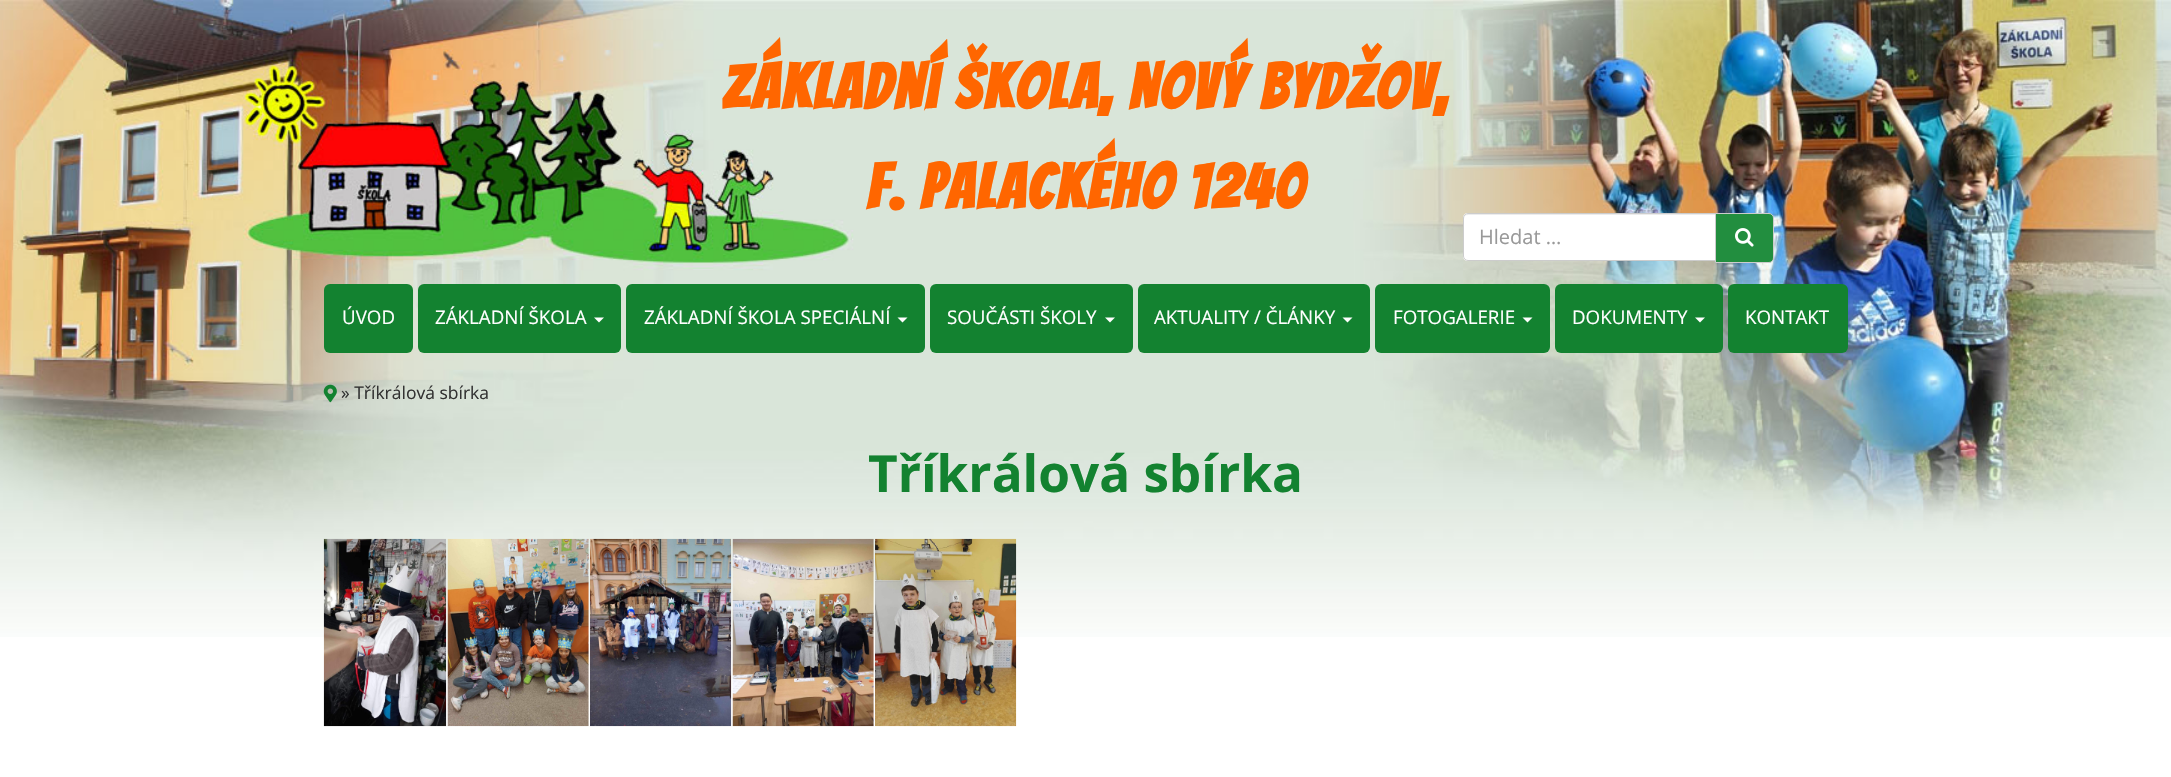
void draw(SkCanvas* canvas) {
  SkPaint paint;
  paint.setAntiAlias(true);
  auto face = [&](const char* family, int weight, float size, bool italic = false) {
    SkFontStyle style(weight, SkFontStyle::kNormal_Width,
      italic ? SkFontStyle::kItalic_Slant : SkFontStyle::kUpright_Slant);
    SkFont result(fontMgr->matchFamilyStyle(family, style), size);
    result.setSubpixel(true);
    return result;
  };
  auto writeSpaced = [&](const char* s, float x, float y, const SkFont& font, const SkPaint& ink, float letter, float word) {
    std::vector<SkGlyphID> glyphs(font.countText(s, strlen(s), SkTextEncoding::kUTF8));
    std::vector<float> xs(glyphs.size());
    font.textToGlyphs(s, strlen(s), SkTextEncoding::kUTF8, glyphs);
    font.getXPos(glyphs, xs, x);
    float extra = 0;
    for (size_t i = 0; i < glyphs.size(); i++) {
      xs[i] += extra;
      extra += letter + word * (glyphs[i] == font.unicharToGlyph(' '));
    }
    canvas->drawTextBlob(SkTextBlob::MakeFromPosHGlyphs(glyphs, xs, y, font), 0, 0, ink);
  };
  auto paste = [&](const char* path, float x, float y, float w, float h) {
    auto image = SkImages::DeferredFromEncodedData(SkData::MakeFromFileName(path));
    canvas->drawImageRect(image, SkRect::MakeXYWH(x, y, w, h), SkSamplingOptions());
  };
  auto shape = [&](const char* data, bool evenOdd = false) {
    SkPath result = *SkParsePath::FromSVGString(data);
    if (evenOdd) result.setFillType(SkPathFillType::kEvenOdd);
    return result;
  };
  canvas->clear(0xffffffff);
  paste("img/1.png", 0, 0, 2171, 637);
  paint.setColor(0xffffffff);
  canvas->drawPath(shape("M1468 213H1716V261H1468C1465 261 1463 259 1463 256V218C1463 215 1465 213 1468 213Z"), paint);
  paint.setColor(0xffececec);
  canvas->drawPath(shape("M1468 215H1715V214H1468C1466 214 1464 216 1464 218V219C1464 217 1465 215 1468 215Z"), paint);
  paint.setStroke(true);
  paint.setStrokeWidth(1);
  paint.setColor(0xffcccccc);
  canvas->drawPath(shape("M1468 213.5H1715.5V260.5H1468C1465.5 260.5 1463.5 258.5 1463.5 256V218C1463.5 215.5 1465.5 213.5 1468 213.5Z"), paint);
  paint.setStroke(false);
  paint.setColor(0xff228e3f);
  canvas->drawPath(shape("M1715.5 213.5H1769C1771.5 213.5 1773.5 215.5 1773.5 218V258C1773.5 260.5 1771.5 262.5 1769 262.5H1715.5Z"), paint);
  paint.setStroke(true);
  paint.setColor(0xffcccccc);
  canvas->drawPath(shape("M1715.5 213.5H1769C1771.5 213.5 1773.5 215.5 1773.5 218V258C1773.5 260.5 1771.5 262.5 1769 262.5H1715.5Z"), paint);
  paste("img/2.png", 1735, 228, 19, 19);
  paint.setStroke(false);
  paint.setColor(0xff138230);
  canvas->drawRoundRect(SkRect::MakeXYWH(324, 284, 89, 69), 6, 6, paint);
  canvas->drawRoundRect(SkRect::MakeXYWH(418, 284, 203, 69), 6, 6, paint);
  paint.setColor(0xffffffff);
  canvas->drawPath(shape("M594 317.5H604L599 322.5Z"), paint);
  paint.setColor(0xff138230);
  canvas->drawRoundRect(SkRect::MakeXYWH(626, 284, 299, 69), 6, 6, paint);
  paint.setColor(0xffffffff);
  canvas->drawPath(shape("M897.5 317.5H907.5L902.5 322.5Z"), paint);
  paint.setColor(0xff138230);
  canvas->drawRoundRect(SkRect::MakeXYWH(930, 284, 203, 69), 6, 6, paint);
  paint.setColor(0xffffffff);
  canvas->drawPath(shape("M1105 317.5H1115L1110 322.5Z"), paint);
  paint.setColor(0xff138230);
  canvas->drawRoundRect(SkRect::MakeXYWH(1138, 284, 232, 69), 6, 6, paint);
  paint.setColor(0xffffffff);
  canvas->drawPath(shape("M1342.5 317.5H1352.5L1347.5 322.5Z"), paint);
  paint.setColor(0xff138230);
  canvas->drawRoundRect(SkRect::MakeXYWH(1375, 284, 175, 69), 6, 6, paint);
  paint.setColor(0xffffffff);
  canvas->drawPath(shape("M1522.5 317.5H1532.5L1527.5 322.5Z"), paint);
  paint.setColor(0xff138230);
  canvas->drawRoundRect(SkRect::MakeXYWH(1555, 284, 168, 69), 6, 6, paint);
  paint.setColor(0xffffffff);
  canvas->drawPath(shape("M1695 317.5H1705L1700 322.5Z"), paint);
  paint.setColor(0xff138230);
  canvas->drawRoundRect(SkRect::MakeXYWH(1728, 284, 120, 69), 6, 6, paint);
  paste("img/3.png", 323, 384, 14, 19);
  paste("img/4.png", 323, 538, 124, 189);
  paste("img/5.png", 447, 538, 142, 189);
  paste("img/6.png", 590, 538, 142, 189);
  paste("img/7.png", 732, 538, 142, 189);
  paste("img/8.png", 875, 538, 142, 189);
  auto f0 = face("Bangers", 700, 62.5f);
  paint.setColor(0xffff6600);
  writeSpaced("Základní škola, Nový Bydžov,", 722, 109, f0, paint, 2.5f, 0);
  writeSpaced("F. Palackého 1240", 866, 209, f0, paint, 2.5f, 0);
  auto f1 = face("Open Sans", 400, 20);
  paint.setColor(0xff999999);
  canvas->drawString("Hledat …", 1479, 244, f1, paint);
  auto f2 = face("Open Sans", 400, 18.75f);
  paint.setColor(0xffffffff);
  {
    const struct { const char* s; float x, y; } items[] = {
      {"ÚVOD", 342, 324},
      {"ZÁKLADNÍ ŠKOLA", 435, 324},
      {"ZÁKLADNÍ ŠKOLA SPECIÁLNÍ", 644, 324},
      {"SOUČÁSTI ŠKOLY", 947, 324},
      {"AKTUALITY / ČLÁNKY", 1154, 324},
      {"FOTOGALERIE", 1393, 324},
      {"DOKUMENTY", 1572, 324},
      {"KONTAKT", 1745, 324},
    };
    for (auto [s, x, y] : items) {
      canvas->drawString(s, x, y, f2, paint);
    }
  }
  auto f3 = face("Open Sans", 400, 17.5f);
  paint.setColor(0xff333333);
  canvas->drawString("» Tříkrálová sbírka", 341, 399, f3, paint);
  auto f4 = face("Open Sans", 700, 51.25f);
  paint.setColor(0xff138230);
  canvas->drawString("Tříkrálová sbírka", 868, 492, f4, paint);
}
